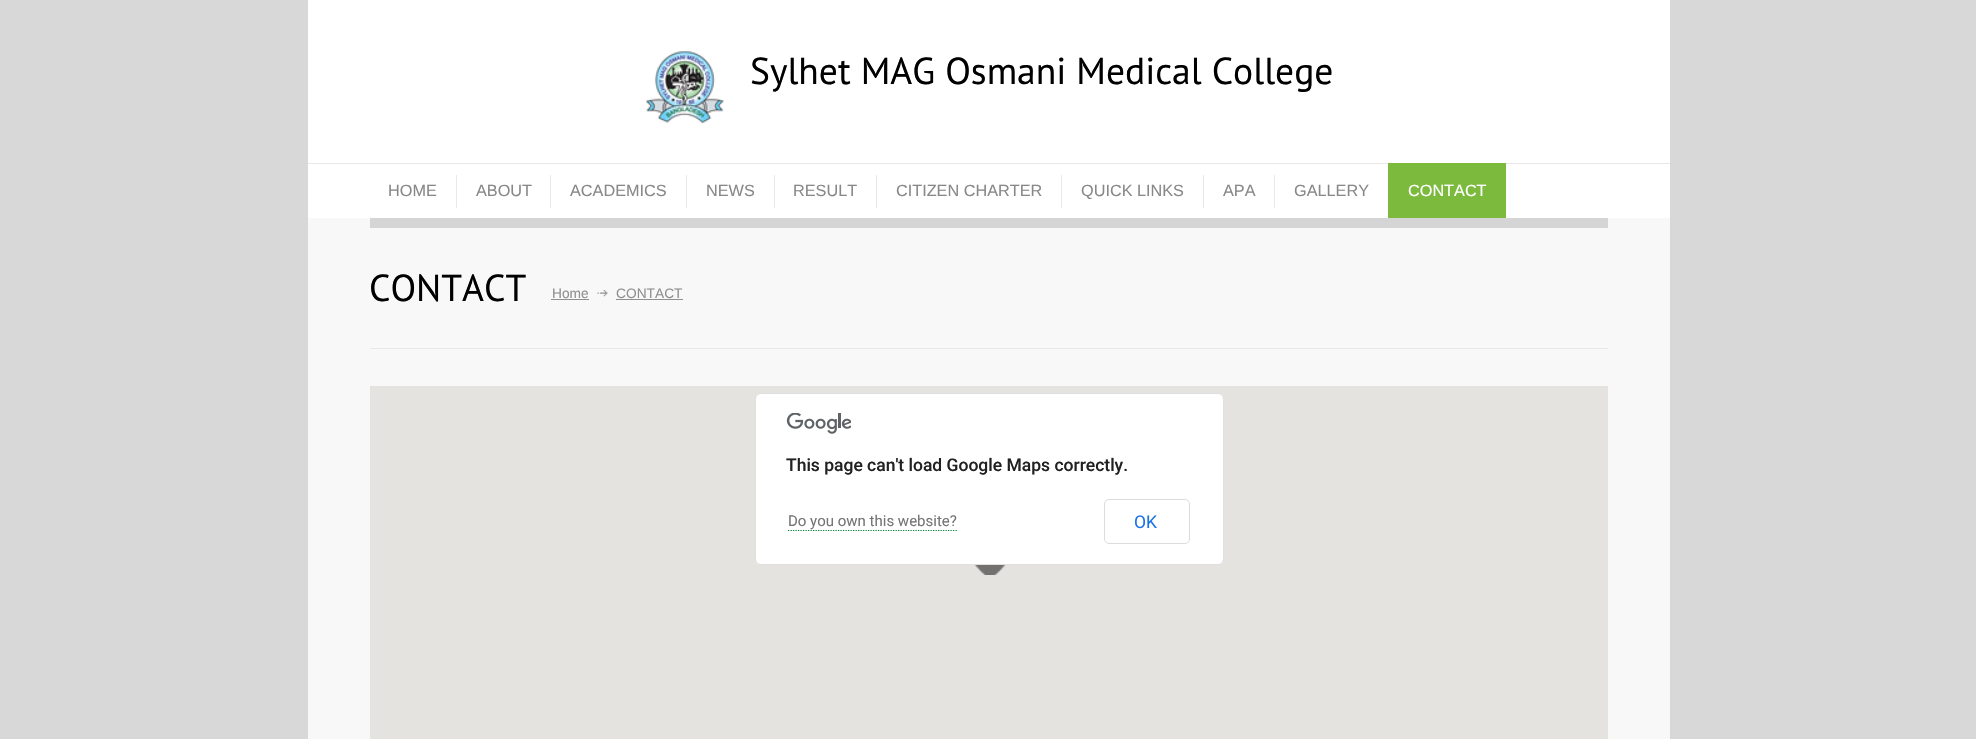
void draw(SkCanvas* canvas) {
  SkPaint paint;
  paint.setAntiAlias(true);
  auto face = [&](const char* family, int weight, float size, bool italic = false) {
    SkFontStyle style(weight, SkFontStyle::kNormal_Width,
      italic ? SkFontStyle::kItalic_Slant : SkFontStyle::kUpright_Slant);
    SkFont result(fontMgr->matchFamilyStyle(family, style), size);
    result.setSubpixel(true);
    return result;
  };
  auto paste = [&](const char* path, float x, float y, float w, float h) {
    auto image = SkImages::DeferredFromEncodedData(SkData::MakeFromFileName(path));
    canvas->drawImageRect(image, SkRect::MakeXYWH(x, y, w, h), SkSamplingOptions());
  };
  auto shape = [&](const char* data, bool evenOdd = false) {
    SkPath result = *SkParsePath::FromSVGString(data);
    if (evenOdd) result.setFillType(SkPathFillType::kEvenOdd);
    return result;
  };
  canvas->clear(0xffd8d8d8);
  paint.setColor(0xfff8f8f8);
  canvas->drawRect(SkRect::MakeXYWH(308, 218, 1362, 521), paint);
  paint.setColor(0xffffffff);
  canvas->drawRect(SkRect::MakeXYWH(308, 0, 1362, 163), paint);
  paste("img/1.png", 646, 51, 78, 73);
  {
    const struct { float x, y, w, h; SkColor color; } items[] = {
      {308, 163, 1362, 1, 0xffe8e8e8},
      {308, 164, 1362, 54, 0xffffffff},
      {369, 218, 87, 1, 0xffffffff},
      {456, 175, 1, 33, 0xffe8e8e8},
      {550, 175, 1, 33, 0xffe8e8e8},
      {686, 175, 1, 33, 0xffe8e8e8},
      {774, 175, 1, 33, 0xffe8e8e8},
      {876, 175, 1, 33, 0xffe8e8e8},
      {1061, 175, 1, 33, 0xffe8e8e8},
      {1203, 175, 1, 33, 0xffe8e8e8},
      {1274, 175, 1, 33, 0xffe8e8e8},
      {1388, 163, 118, 55, 0xff7cba3d},
      {370, 218, 1238, 10, 0xffd5d5d5},
      {370, 348, 1238, 1, 0xffe8e8e8},
      {551, 299, 38, 1, 0xff909090},
    };
    for (auto [x, y, w, h, color] : items) {
      paint.setColor(color);
      canvas->drawRect(SkRect::MakeXYWH(x, y, w, h), paint);
    }
  }
  paste("img/2.png", 597, 290, 11, 7);
  canvas->drawRect(SkRect::MakeXYWH(616, 299, 67, 1), paint);
  paint.setColor(0xffe5e3df);
  canvas->drawRect(SkRect::MakeXYWH(370, 386, 1238, 353), paint);
  paste("img/3.png", 974, 565, 32, 10);
  paint.setColor(0xffffffff);
  canvas->drawRoundRect(SkRect::MakeXYWH(755, 393, 469, 172), 6, 6, paint);
  paint.setStroke(true);
  paint.setStrokeWidth(1);
  paint.setColor(0x1f000000);
  canvas->drawRoundRect(SkRect::MakeXYWH(755.5f, 393.5f, 468, 171), 5.5f, 5.5f, paint);
  paste("img/4.png", 786, 413, 65, 21);
  paint.setStrokeWidth(1.2f);
  paint.setColor(0xff008238);
  paint.setPathEffect(SkDashPathEffect::Make({{1.25f, 1.25f}}, 0));
  canvas->drawPath(shape("M788 530.5H957"), paint);
  paint.setPathEffect(nullptr);
  paint.setStrokeWidth(1);
  paint.setColor(0xffdadce0);
  canvas->drawRoundRect(SkRect::MakeXYWH(1104.5f, 499.5f, 85, 44), 4.5f, 4.5f, paint);
  auto f0 = face("PT Sans", 400, 37.5f);
  paint.setStroke(false);
  paint.setColor(0xff000000);
  canvas->drawString("Sylhet MAG Osmani Medical College", 750, 84, f0, paint);
  auto f1 = face("Liberation Sans", 400, 16.25f);
  paint.setColor(0xff888888);
  {
    const struct { const char* s; float x, y; } items[] = {
      {"HOME", 388, 196},
      {"ABOUT", 476, 196},
      {"ACADEMICS", 570, 196},
      {"NEWS", 706, 196},
      {"RESULT", 793, 196},
      {"CITIZEN CHARTER", 896, 196},
      {"QUICK LINKS", 1081, 196},
      {"APA", 1223, 196},
      {"GALLERY", 1294, 196},
    };
    for (auto [s, x, y] : items) {
      canvas->drawString(s, x, y, f1, paint);
    }
  }
  paint.setColor(0xffffffff);
  canvas->drawString("CONTACT", 1408, 196, f1, paint);
  paint.setColor(0xff000000);
  canvas->drawString("CONTACT", 369, 301, f0, paint);
  auto f2 = face("Liberation Sans", 400, 13.75f);
  paint.setColor(0xff909090);
  canvas->drawString("Home", 552, 298, f2, paint);
  canvas->drawString("CONTACT", 616, 298, f2, paint);
  auto f3 = face("Roboto", 500, 17.5f);
  paint.setColor(0xff212121);
  canvas->drawString("This page can't load Google Maps correctly.", 786, 471, f3, paint);
  auto f4 = face("Roboto", 400, 15);
  paint.setColor(0xff757575);
  canvas->drawString("Do you own this website?", 788, 526, f4, paint);
  auto f5 = face("Roboto", 400, 17.5f);
  paint.setColor(0xff1a73e8);
  canvas->drawString("OK", 1134, 528, f5, paint);
}
